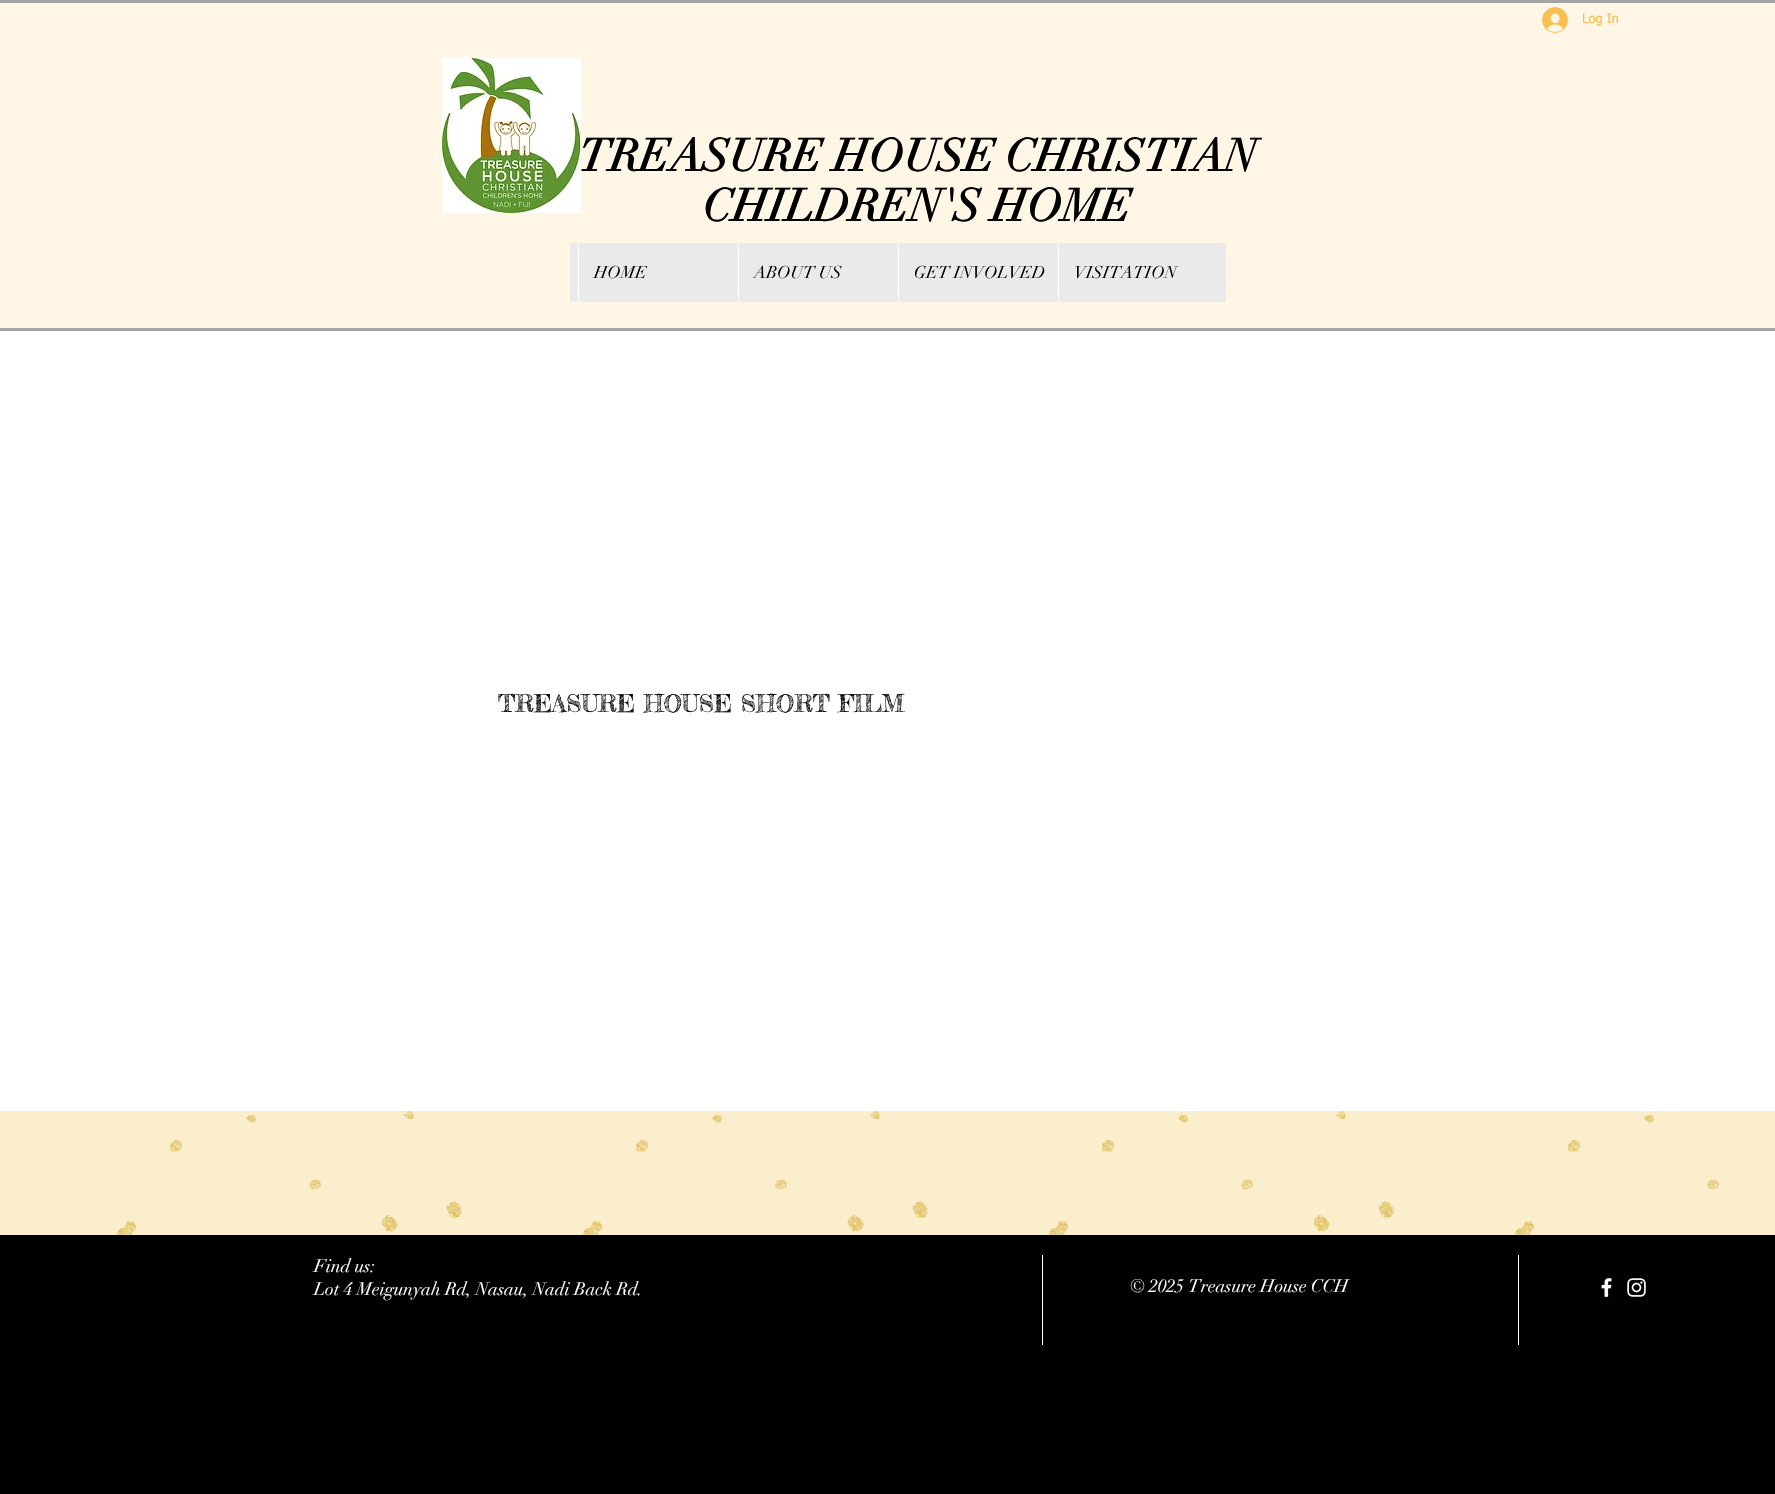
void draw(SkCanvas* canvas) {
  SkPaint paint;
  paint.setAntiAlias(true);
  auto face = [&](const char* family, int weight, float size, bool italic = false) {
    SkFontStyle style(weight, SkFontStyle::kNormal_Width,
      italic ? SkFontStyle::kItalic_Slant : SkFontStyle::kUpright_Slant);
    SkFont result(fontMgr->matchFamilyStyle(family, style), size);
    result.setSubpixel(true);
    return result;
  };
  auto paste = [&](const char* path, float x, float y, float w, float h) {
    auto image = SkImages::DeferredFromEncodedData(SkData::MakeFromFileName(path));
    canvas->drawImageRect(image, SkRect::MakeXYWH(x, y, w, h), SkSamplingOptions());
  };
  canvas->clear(0xfffaeecd);
  {
    const struct { float x, y, w, h; SkColor color; } items[] = {
      {0, 3, 1775, 325, 0xfffff6e5},
      {0, 0, 1775, 3, 0xffa4a4a4},
      {0, 328, 1775, 3, 0xffa4a4a4},
    };
    for (auto [x, y, w, h, color] : items) {
      paint.setColor(color);
      canvas->drawRect(SkRect::MakeXYWH(x, y, w, h), paint);
    }
  }
  paste("img/1.png", 1542, 7, 26, 26);
  paste("img/2.png", 442, 58, 139, 155);
  {
    const struct { float x, y, w, h; SkColor color; } items[] = {
      {570, 243, 656, 59, 0xffeaeaea},
      {578, 243, 1, 59, 0xffffffff},
      {738, 243, 1, 59, 0xffffffff},
      {898, 243, 1, 59, 0xffffffff},
      {1058, 243, 1, 59, 0xffffffff},
      {0, 331, 1775, 780, 0xffffffff},
      {0, 1235, 1775, 259, 0xff000000},
      {1042, 1255, 1, 90, 0xffffffff},
      {1518, 1255, 1, 90, 0xffffffff},
    };
    for (auto [x, y, w, h, color] : items) {
      paint.setColor(color);
      canvas->drawRect(SkRect::MakeXYWH(x, y, w, h), paint);
    }
  }
  paste("img/3.png", 1601, 1278, 11, 19);
  paste("img/4.png", 1627, 1278, 19, 19);
  paste("img/5.png", 116, 1111, 1603, 124);
  auto f0 = face("tahoma", 400, 13);
  paint.setColor(0xfff9bf51);
  canvas->drawString("Log In", 1582, 23, f0, paint);
  auto f1 = face("didot", 700, 45);
  paint.setColor(0xff000000);
  canvas->drawString("TREASURE HOUSE CHRISTIAN", 579, 171, f1, paint);
  canvas->drawString("CHILDREN'S HOME", 703, 221, f1, paint);
  auto f2 = face("didot", 400, 17);
  {
    const struct { const char* s; float x, y; } items[] = {
      {"HOME", 594, 278},
      {"ABOUT US", 754, 278},
      {"GET INVOLVED", 914, 278},
      {"VISITATION", 1074, 278},
    };
    for (auto [s, x, y] : items) {
      canvas->drawString(s, x, y, f2, paint);
    }
  }
  auto f3 = face("Fredericka the Great", 400, 24);
  canvas->drawString("TREASURE HOUSE SHORT FILM", 498, 712, f3, paint);
  auto f4 = face("didot", 400, 18);
  paint.setColor(0xffffffff);
  {
    const struct { const char* s; float x, y; } items[] = {
      {"Find us:", 314, 1272},
      {"Lot 4 Meigunyah Rd, Nasau, Nadi Back Rd.", 314, 1295},
      {"© 2025 Treasure House CCH", 1130, 1292},
    };
    for (auto [s, x, y] : items) {
      canvas->drawString(s, x, y, f4, paint);
    }
  }
}
